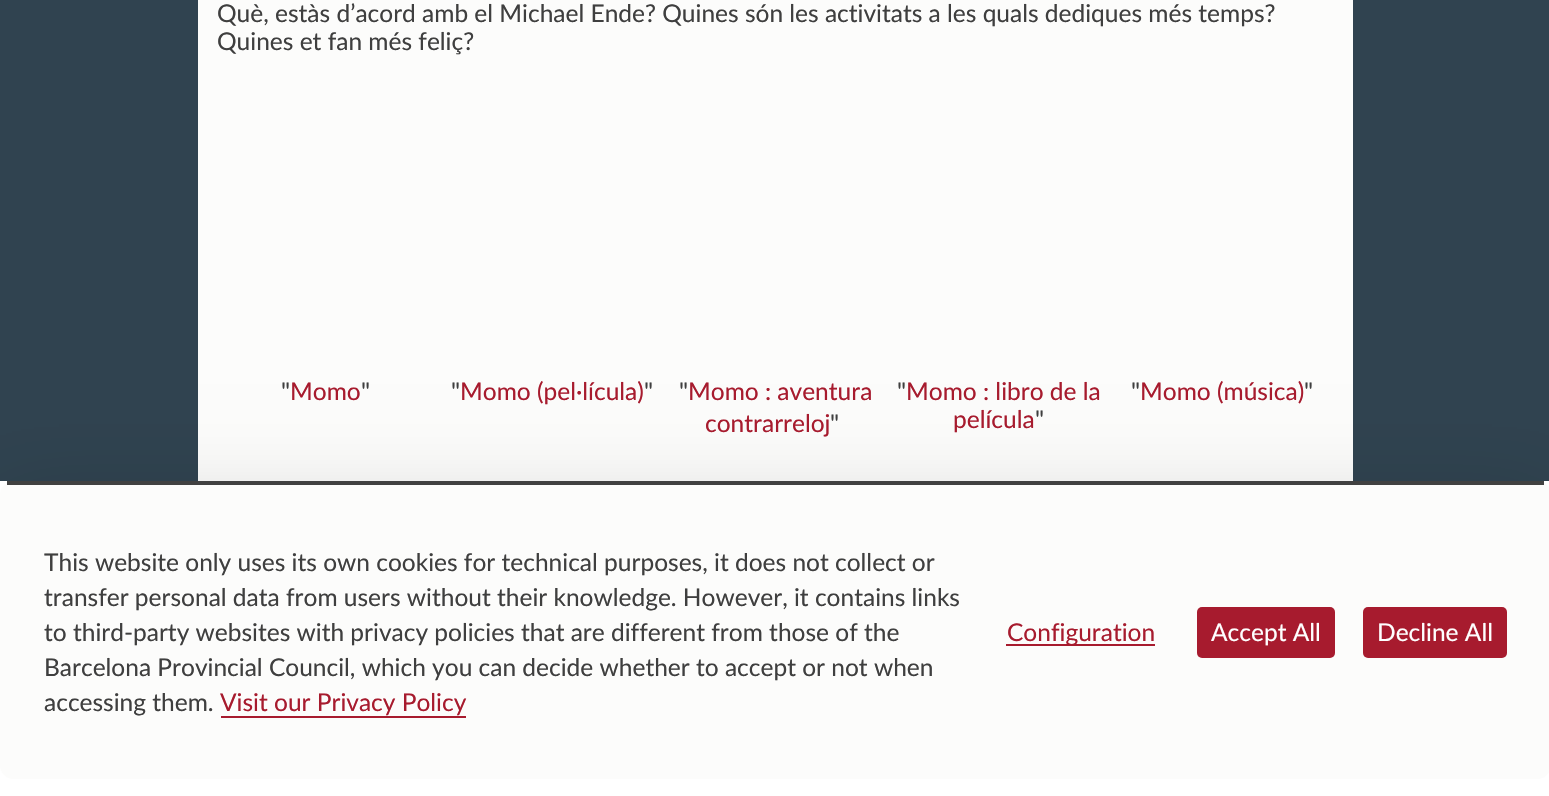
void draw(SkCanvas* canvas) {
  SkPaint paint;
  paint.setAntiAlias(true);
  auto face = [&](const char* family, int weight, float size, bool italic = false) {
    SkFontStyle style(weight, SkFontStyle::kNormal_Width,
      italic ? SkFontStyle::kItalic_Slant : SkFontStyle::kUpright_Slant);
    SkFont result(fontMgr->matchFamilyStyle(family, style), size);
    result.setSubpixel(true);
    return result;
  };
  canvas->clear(0xff304350);
  paint.setColor(0xfffcfcfb);
  canvas->drawRect(SkRect::MakeXYWH(198, 0, 1155, 481), paint);
  paint.setColor(0x2e000000);
  paint.setMaskFilter(SkMaskFilter::MakeBlur(kNormal_SkBlurStyle, 42));
  canvas->drawRect(SkRect::MakeXYWH(0, 509, 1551, 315), paint);
  paint.setMaskFilter(nullptr);
  paint.setColor(0xffffffff);
  canvas->drawRect(SkRect::MakeXYWH(0, 481, 1549, 315), paint);
  paint.setColor(0xfffcfcfb);
  canvas->drawRoundRect(SkRect::MakeXYWH(0, 481, 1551, 298), 14, 14, paint);
  {
    const struct { float x, y, w, h; SkColor color; } items[] = {
      {7, 481, 1537, 4, 0xbd000000},
      {221, 716, 245, 2, 0xffa71b2e},
      {1006, 644, 149, 2, 0xffa71b2e},
    };
    for (auto [x, y, w, h, color] : items) {
      paint.setColor(color);
      canvas->drawRect(SkRect::MakeXYWH(x, y, w, h), paint);
    }
  }
  canvas->drawRoundRect(SkRect::MakeXYWH(1197, 607, 138, 51), 5, 5, paint);
  canvas->drawRoundRect(SkRect::MakeXYWH(1363, 607, 144, 51), 5, 5, paint);
  auto f0 = face("Lato", 400, 24.5f);
  paint.setColor(0xff3f3f3f);
  {
    const struct { const char* s; float x, y; } items[] = {
      {"Què, estàs d’acord amb el Michael Ende? Quines són les activitats a les quals dediques més temps?", 217, 22},
      {"Quines et fan més feliç?", 217, 50},
      {"\"", 281, 400},
    };
    for (auto [s, x, y] : items) {
      canvas->drawString(s, x, y, f0, paint);
    }
  }
  paint.setColor(0xffa71b2e);
  canvas->drawString("Momo", 290, 400, f0, paint);
  paint.setColor(0xff3f3f3f);
  canvas->drawString("\"", 361, 400, f0, paint);
  canvas->drawString("\"", 451, 400, f0, paint);
  paint.setColor(0xffa71b2e);
  canvas->drawString("Momo (pel·lícula)", 460, 400, f0, paint);
  paint.setColor(0xff3f3f3f);
  canvas->drawString("\"", 644, 400, f0, paint);
  canvas->drawString("\"", 679, 400, f0, paint);
  paint.setColor(0xffa71b2e);
  canvas->drawString("Momo : aventura", 688, 400, f0, paint);
  canvas->drawString("contrarreloj", 705, 432, f0, paint);
  paint.setColor(0xff3f3f3f);
  canvas->drawString("\"", 830, 432, f0, paint);
  canvas->drawString("\"", 897, 400, f0, paint);
  paint.setColor(0xffa71b2e);
  canvas->drawString("Momo : libro de la", 906, 400, f0, paint);
  canvas->drawString("película", 953, 428, f0, paint);
  paint.setColor(0xff3f3f3f);
  canvas->drawString("\"", 1035, 428, f0, paint);
  canvas->drawString("\"", 1131, 400, f0, paint);
  paint.setColor(0xffa71b2e);
  canvas->drawString("Momo (música)", 1140, 400, f0, paint);
  paint.setColor(0xff3f3f3f);
  {
    const struct { const char* s; float x, y; } items[] = {
      {"\"", 1304, 400},
      {"This website only uses its own cookies for technical purposes, it does not collect or", 44, 571},
      {"transfer personal data from users without their knowledge. However, it contains links", 44, 606},
      {"to third-party websites with privacy policies that are different from those of the", 44, 641},
      {"Barcelona Provincial Council, which you can decide whether to accept or not when", 44, 676},
      {"accessing them.", 44, 711},
    };
    for (auto [s, x, y] : items) {
      canvas->drawString(s, x, y, f0, paint);
    }
  }
  paint.setColor(0xffa71b2e);
  canvas->drawString("Visit our Privacy Policy", 220, 711, f0, paint);
  canvas->drawString("Configuration", 1007, 641, f0, paint);
  paint.setColor(0xffffffff);
  canvas->drawString("Accept All", 1211, 641, f0, paint);
  canvas->drawString("Decline All", 1377, 641, f0, paint);
}
